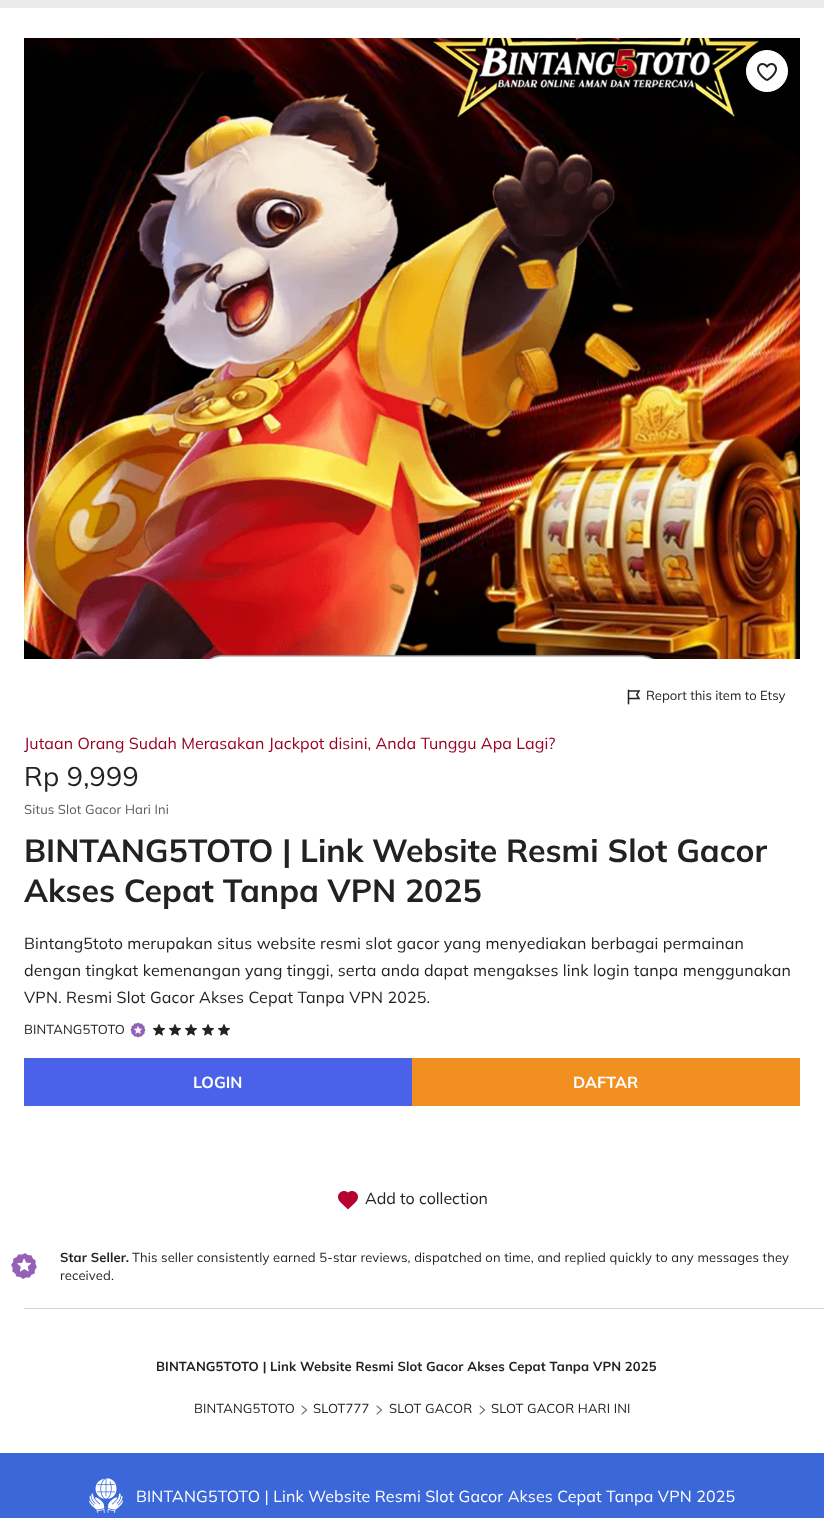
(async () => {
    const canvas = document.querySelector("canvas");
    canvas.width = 824;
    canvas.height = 1518;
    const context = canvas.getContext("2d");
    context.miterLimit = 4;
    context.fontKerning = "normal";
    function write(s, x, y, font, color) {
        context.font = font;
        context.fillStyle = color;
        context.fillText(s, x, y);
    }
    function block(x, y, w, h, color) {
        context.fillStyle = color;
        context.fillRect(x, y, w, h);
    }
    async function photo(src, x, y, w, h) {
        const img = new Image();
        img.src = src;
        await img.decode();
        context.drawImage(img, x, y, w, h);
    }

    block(0, 0, 824, 1518, "rgb(255, 255, 255)");
    block(0, 0, 824, 8, "rgb(234, 234, 234)");
    await photo("media/1.png", 24, 38, 776, 621);
    context.fillStyle = "rgb(255, 255, 255)";
    context.beginPath();
    context.arc(767, 71, 20.5, 0, Math.PI * 2);
    context.fill();
    context.strokeStyle = "rgb(255, 255, 255)";
    context.stroke();
    await photo("media/2.png", 757, 63, 20, 18);
    await photo("media/3.png", 627, 689, 14, 16);
    write("Report this item to Etsy", 646, 700, "13px Mulish", "rgb(34, 34, 34)");
    context.letterSpacing = "0.08px";
    write("Jutaan Orang Sudah Merasakan Jackpot disini, Anda Tunggu Apa Lagi?", 24, 749, "16px Mulish", "rgb(154, 0, 39)");
    context.letterSpacing = "0.25px";
    write("Rp 9,999", 24, 786, "27px Mulish", "rgb(34, 34, 34)");
    context.letterSpacing = "0.13px";
    write("Situs Slot Gacor Hari Ini", 24, 814, "13px Mulish", "rgb(89, 89, 89)");
    context.letterSpacing = "0px";
    write("BINTANG5TOTO | Link Website Resmi Slot Gacor", 24, 862, "bold 32px Mulish", "rgb(34, 34, 34)");
    write("Akses Cepat Tanpa VPN 2025", 24, 902, "bold 32px Mulish", "rgb(34, 34, 34)");
    context.letterSpacing = "0.15px";
    write("Bintang5toto merupakan situs website resmi slot gacor yang menyediakan berbagai permainan", 24, 949, "16px Mulish", "rgb(34, 34, 34)");
    write("dengan tingkat kemenangan yang tinggi, serta anda dapat mengakses link login tanpa menggunakan", 24, 976, "16px Mulish", "rgb(34, 34, 34)");
    write("VPN. Resmi Slot Gacor Akses Cepat Tanpa VPN 2025.", 24, 1003, "16px Mulish", "rgb(34, 34, 34)");
    context.letterSpacing = "0.13px";
    write("BINTANG5TOTO", 24, 1034, "13px Mulish", "rgb(34, 34, 34)");
    await photo("media/4.png", 130, 1022, 16, 16);
    await photo("media/5.png", 153, 1024, 12, 12);
    await photo("media/5.png", 169, 1024, 12, 12);
    await photo("media/5.png", 185, 1024, 12, 12);
    await photo("media/5.png", 202, 1024, 12, 12);
    await photo("media/5.png", 218, 1024, 12, 12);
    block(24, 1058, 388, 48, "rgb(74, 97, 233)");
    context.letterSpacing = "0px";
    write("LOGIN", 193, 1088, "bold 16px Mulish", "rgb(255, 255, 255)");
    block(412, 1058, 388, 48, "rgb(241, 144, 33)");
    write("DAFTAR", 573, 1088, "bold 16px Mulish", "rgb(255, 255, 255)");
    await photo("media/6.png", 338, 1191, 20, 19);
    write("Add to collection", 365, 1204, "16px Mulish", "rgb(34, 34, 34)");
    await photo("media/7.png", 11, 1253, 26, 26);
    context.letterSpacing = "0.13px";
    write("Star Seller.", 60, 1262, "bold 13px Mulish", "rgb(34, 34, 34)");
    write("This seller consistently earned 5-star reviews, dispatched on time, and replied quickly to any messages they", 132, 1262, "13px Mulish", "rgb(34, 34, 34)");
    write("received.", 60, 1280, "13px Mulish", "rgb(34, 34, 34)");
    block(24, 1308, 800, 1, "rgb(212, 212, 212)");
    write("BINTANG5TOTO | Link Website Resmi Slot Gacor Akses Cepat Tanpa VPN 2025", 156, 1371, "bold 13px Mulish", "rgb(34, 34, 34)");
    write("BINTANG5TOTO", 194, 1413, "13px Mulish", "rgb(34, 34, 34)");
    await photo("media/8.png", 301, 1405, 7, 10);
    write("SLOT777", 313, 1413, "13px Mulish", "rgb(34, 34, 34)");
    await photo("media/8.png", 376, 1405, 7, 10);
    write("SLOT GACOR", 389, 1413, "13px Mulish", "rgb(34, 34, 34)");
    await photo("media/8.png", 479, 1405, 7, 10);
    write("SLOT GACOR HARI INI", 491, 1413, "13px Mulish", "rgb(34, 34, 34)");
    block(0, 1453, 824, 65, "rgb(59, 103, 217)");
    await photo("media/9.png", 89, 1478, 34, 35);
    context.letterSpacing = "0.15px";
    write("BINTANG5TOTO | Link Website Resmi Slot Gacor Akses Cepat Tanpa VPN 2025", 136, 1502, "16px Mulish", "rgb(255, 255, 255)");
})();
